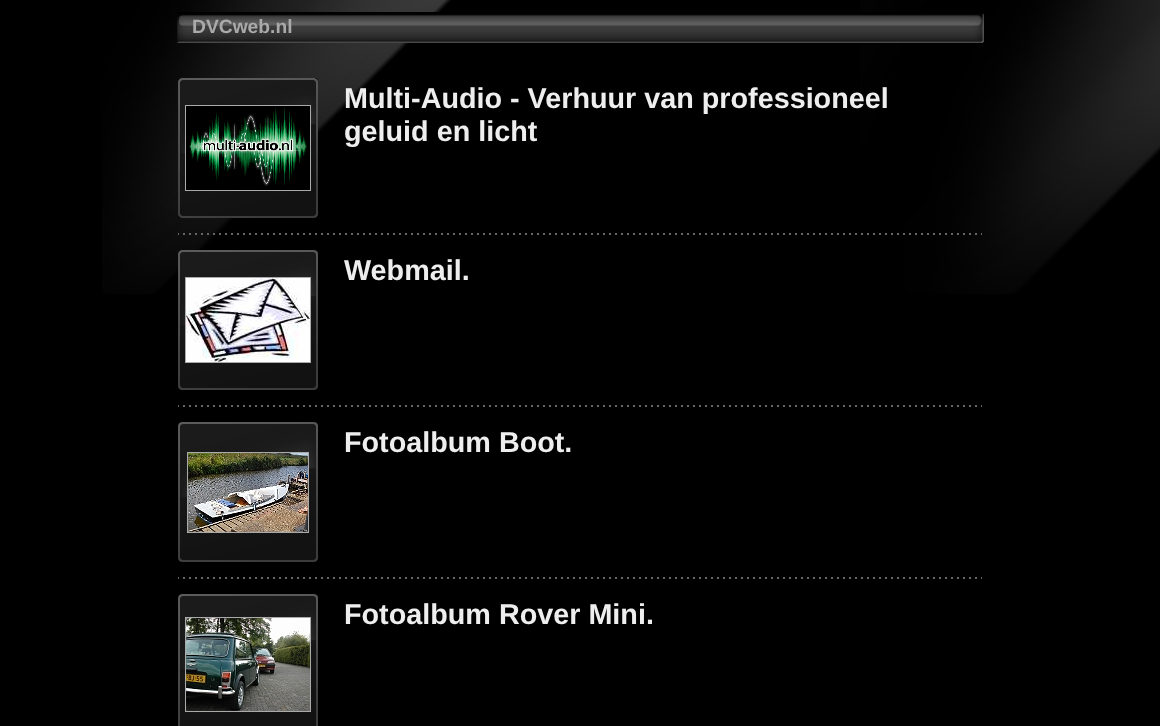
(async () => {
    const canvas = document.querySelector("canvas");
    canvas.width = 1160;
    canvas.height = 726;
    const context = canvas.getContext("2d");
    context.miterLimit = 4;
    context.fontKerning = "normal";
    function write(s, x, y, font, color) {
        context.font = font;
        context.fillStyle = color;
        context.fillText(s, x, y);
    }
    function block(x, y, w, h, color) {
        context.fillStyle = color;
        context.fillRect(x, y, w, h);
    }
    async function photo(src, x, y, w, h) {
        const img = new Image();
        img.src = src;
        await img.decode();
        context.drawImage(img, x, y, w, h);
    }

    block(0, 0, 1160, 726, "rgb(0, 0, 0)");
    await photo("media/1.png", 102, 0, 1058, 294);
    await photo("media/2.png", 177, 12, 15, 31);
    await photo("media/3.png", 192, 12, 776, 31);
    write("DVCweb.nl", 192, 33, "bold 19.25px Liberation Sans", "rgb(170, 170, 170)");
    await photo("media/4.png", 968, 13, 16, 30);
    await photo("media/5.png", 178, 78, 140, 140);
    context.strokeStyle = "rgb(170, 170, 170)";
    context.strokeRect(185.5, 105.5, 125, 85);
    await photo("media/6.png", 186, 106, 124, 84);
    write("Multi-Audio - Verhuur van professioneel", 344, 108, "bold 28.75px Liberation Sans", "rgb(238, 238, 238)");
    write("geluid en licht", 344, 141, "bold 28.75px Liberation Sans", "rgb(238, 238, 238)");
    await photo("media/7.png", 178, 233, 804, 2);
    await photo("media/8.png", 178, 250, 140, 140);
    context.strokeRect(185.5, 277.5, 125, 85);
    await photo("media/9.png", 186, 278, 124, 84);
    write("Webmail.", 344, 280, "bold 28.75px Liberation Sans", "rgb(238, 238, 238)");
    await photo("media/10.png", 178, 405, 804, 2);
    await photo("media/11.png", 178, 422, 140, 140);
    context.strokeRect(187.5, 452.5, 121, 80);
    await photo("media/12.png", 188, 453, 120, 79);
    write("Fotoalbum Boot.", 344, 452, "bold 28.75px Liberation Sans", "rgb(238, 238, 238)");
    await photo("media/10.png", 178, 577, 804, 2);
    await photo("media/13.png", 178, 594, 140, 132);
    context.strokeRect(185.5, 617.5, 125, 94);
    await photo("media/14.png", 186, 618, 124, 93);
    write("Fotoalbum Rover Mini.", 344, 624, "bold 28.75px Liberation Sans", "rgb(238, 238, 238)");
})();
